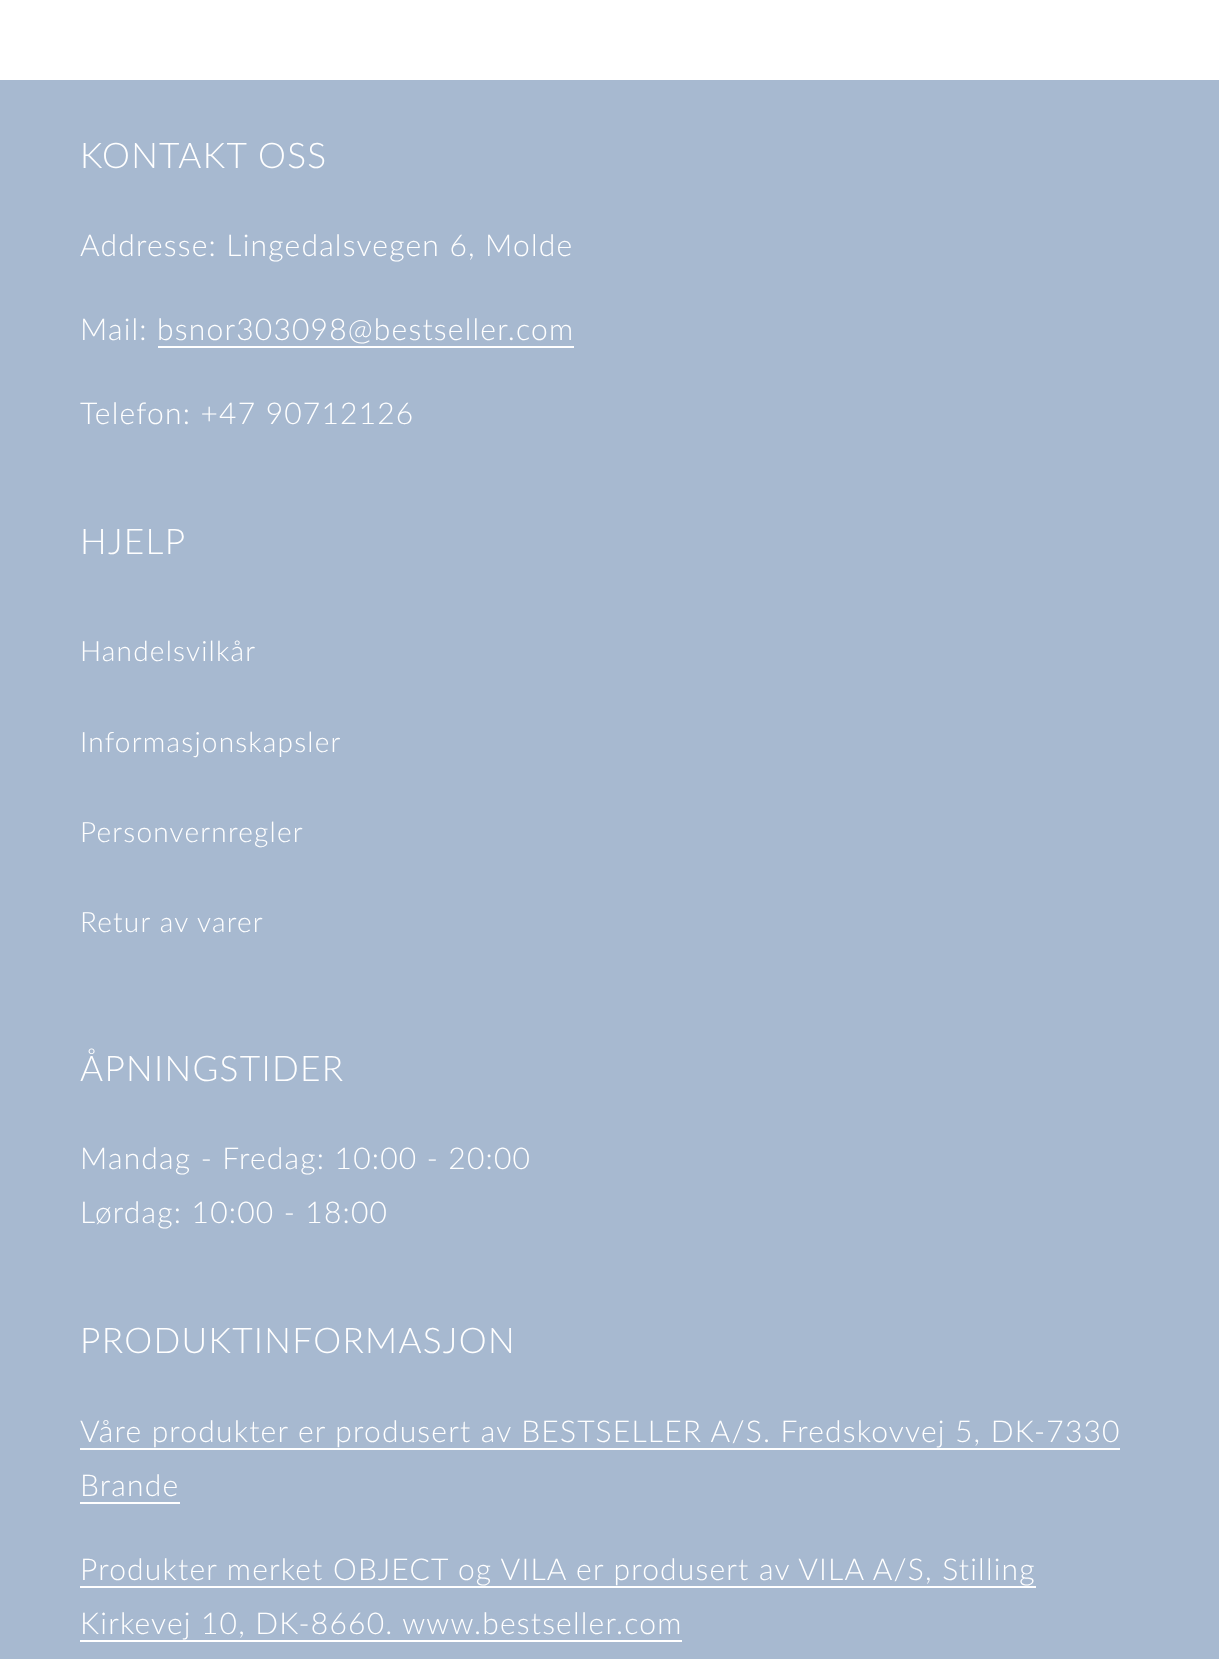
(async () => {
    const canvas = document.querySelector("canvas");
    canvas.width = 1219;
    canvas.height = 1659;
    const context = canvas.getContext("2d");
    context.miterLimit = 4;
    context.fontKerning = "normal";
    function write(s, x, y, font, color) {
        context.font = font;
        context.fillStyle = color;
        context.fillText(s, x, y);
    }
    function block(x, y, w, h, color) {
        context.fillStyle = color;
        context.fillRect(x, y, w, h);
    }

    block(0, 0, 1219, 1659, "rgb(255, 255, 255)");
    block(0, 80, 1219, 1579, "rgb(167, 185, 208)");
    context.letterSpacing = "1.3px";
    write("KONTAKT OSS", 80, 168, "300 35.25px Lato", "rgb(255, 255, 255)");
    context.letterSpacing = "1.2px";
    write("Addresse: Lingedalsvegen 6, Molde", 80, 256, "300 30px Lato", "rgb(255, 255, 255)");
    write("Mail: bsnor303098@bestseller.com", 80, 340, "300 30px Lato", "rgb(255, 255, 255)");
    block(158, 346, 416, 2, "rgb(255, 255, 255)");
    write("Telefon: +47 90712126", 80, 424, "300 30px Lato", "rgb(255, 255, 255)");
    context.letterSpacing = "1.3px";
    write("HJELP", 80, 554, "300 35.25px Lato", "rgb(255, 255, 255)");
    context.letterSpacing = "1.2px";
    write("Handelsvilkår", 80, 661, "300 28px Lato", "rgb(255, 255, 255)");
    write("Informasjonskapsler", 80, 752, "300 28px Lato", "rgb(255, 255, 255)");
    write("Personvernregler", 80, 842, "300 28px Lato", "rgb(255, 255, 255)");
    write("Retur av varer", 80, 932, "300 28px Lato", "rgb(255, 255, 255)");
    context.letterSpacing = "1.3px";
    write("ÅPNINGSTIDER", 80, 1081, "300 35.25px Lato", "rgb(255, 255, 255)");
    context.letterSpacing = "1.2px";
    write("Mandag - Fredag: 10:00 - 20:00", 80, 1169, "300 30px Lato", "rgb(255, 255, 255)");
    write("Lørdag: 10:00 - 18:00", 80, 1223, "300 30px Lato", "rgb(255, 255, 255)");
    context.letterSpacing = "1.3px";
    write("PRODUKTINFORMASJON", 80, 1353, "300 35.25px Lato", "rgb(255, 255, 255)");
    context.letterSpacing = "1.2px";
    write("Våre produkter er produsert av BESTSELLER A/S. Fredskovvej 5, DK-7330", 80, 1442, "300 30px Lato", "rgb(255, 255, 255)");
    block(80, 1448, 1040, 2, "rgb(255, 255, 255)");
    write("Brande", 80, 1496, "300 30px Lato", "rgb(255, 255, 255)");
    block(80, 1502, 100, 2, "rgb(255, 255, 255)");
    write("Produkter merket OBJECT og VILA er produsert av VILA A/S, Stilling", 80, 1580, "300 30px Lato", "rgb(255, 255, 255)");
    block(80, 1586, 956, 2, "rgb(255, 255, 255)");
    write("Kirkevej 10, DK-8660. www.bestseller.com", 80, 1634, "300 30px Lato", "rgb(255, 255, 255)");
    block(80, 1640, 602, 2, "rgb(255, 255, 255)");
})();
